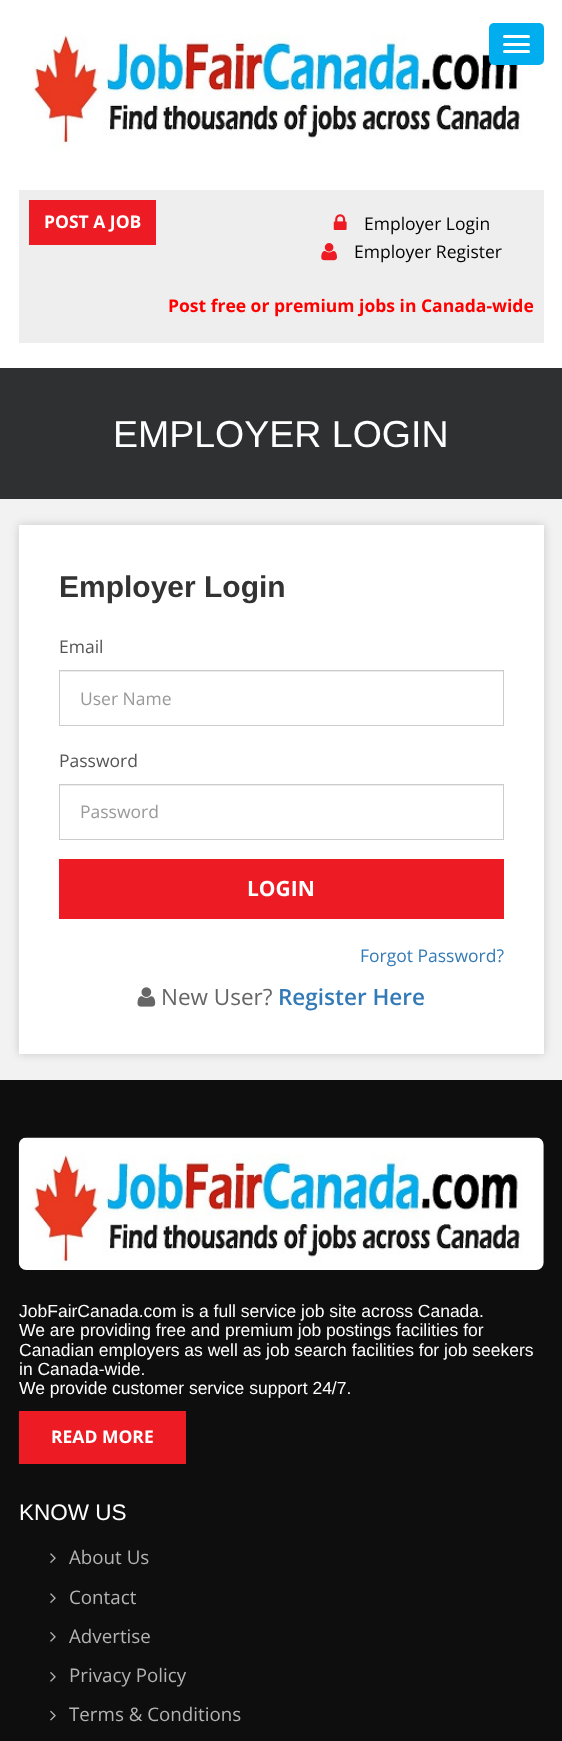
(async () => {
    const canvas = document.querySelector("canvas");
    canvas.width = 562;
    canvas.height = 1741;
    const context = canvas.getContext("2d");
    context.miterLimit = 4;
    context.fontKerning = "normal";
    function write(s, x, y, font, color) {
        context.font = font;
        context.fillStyle = color;
        context.fillText(s, x, y);
    }
    function block(x, y, w, h, color) {
        context.fillStyle = color;
        context.fillRect(x, y, w, h);
    }
    function card(x, y, w, h, r, color) {
        context.fillStyle = color;
        context.beginPath();
        context.roundRect(x, y, w, h, r);
        context.fill();
    }
    async function photo(src, x, y, w, h) {
        const img = new Image();
        img.src = src;
        await img.decode();
        context.drawImage(img, x, y, w, h);
    }

    block(0, 0, 562, 1741, "rgb(255, 255, 255)");
    await photo("media/1.png", 33, 34, 490, 116);
    card(489, 23, 55, 42, 5, "rgb(0, 174, 239)");
    card(503, 35, 27, 3, 1.5, "rgb(255, 255, 255)");
    card(503, 43, 27, 3, 1.5, "rgb(255, 255, 255)");
    card(503, 50, 27, 3, 1.5, "rgb(255, 255, 255)");
    block(19, 190, 525, 153, "rgb(238, 238, 238)");
    block(29, 200, 127, 45, "rgb(237, 28, 36)");
    write("POST A JOB", 44, 228, "bold 17.5px Open Sans", "rgb(255, 255, 255)");
    await photo("media/2.png", 333, 214, 14, 16);
    write("Employer Login", 364, 230, "17.5px Open Sans", "rgb(0, 0, 0)");
    await photo("media/3.png", 321, 243, 16, 18);
    write("Employer Register", 354, 258, "17.5px Open Sans", "rgb(0, 0, 0)");
    write("Post free or premium jobs in Canada-wide", 168, 312, "bold 17.5px Open Sans", "rgb(255, 0, 0)");
    block(0, 368, 562, 131, "rgb(47, 48, 50)");
    write("EMPLOYER LOGIN", 113, 447, "37.5px Liberation Sans", "rgb(255, 255, 255)");
    block(0, 499, 562, 581, "rgb(243, 242, 242)");
    context.fillStyle = "rgba(0, 0, 0, 0.17)";
    context.filter = "blur(5px)";
    context.beginPath();
    context.rect(19, 525, 525, 529);
    context.fill();
    context.filter = "none";
    block(19, 525, 525, 529, "rgb(255, 255, 255)");
    write("Employer Login", 59, 597, "bold 30px Liberation Sans", "rgb(51, 51, 51)");
    write("Email", 59, 653, "17.5px Open Sans", "rgb(85, 85, 85)");
    block(60, 671, 443, 1, "rgb(236, 236, 236)");
    context.strokeStyle = "rgb(204, 204, 204)";
    context.strokeRect(59.5, 670.5, 444, 55);
    write("User Name", 80, 705, "17.5px Open Sans", "rgb(153, 153, 153)");
    write("Password", 59, 767, "17.5px Open Sans", "rgb(85, 85, 85)");
    block(60, 785, 443, 1, "rgb(236, 236, 236)");
    context.strokeRect(59.5, 784.5, 444, 55);
    write("Password", 80, 818, "17.5px Open Sans", "rgb(153, 153, 153)");
    block(59, 859, 445, 60, "rgb(237, 28, 36)");
    write("LOGIN", 247, 896, "bold 21px Open Sans", "rgb(255, 255, 255)");
    write("Forgot Password?", 360, 962, "17.5px Open Sans", "rgb(51, 122, 183)");
    await photo("media/4.png", 137, 987, 19, 20);
    write("New User?", 161, 1005, "22.5px Open Sans", "rgb(102, 102, 102)");
    write("Register Here", 278, 1005, "600 22.5px Open Sans", "rgb(51, 122, 183)");
    block(0, 1080, 562, 661, "rgb(14, 14, 14)");
    await photo("media/5.png", 18, 1137, 526, 133);
    write("JobFairCanada.com is a full service job site across Canada.", 19, 1317, "17.5px Liberation Sans", "rgb(255, 255, 255)");
    write("We are providing free and premium job postings facilities for", 19, 1336, "17.5px Liberation Sans", "rgb(255, 255, 255)");
    write("Canadian employers as well as job search facilities for job seekers", 19, 1356, "17.5px Liberation Sans", "rgb(255, 255, 255)");
    write("in Canada-wide.", 19, 1375, "17.5px Liberation Sans", "rgb(255, 255, 255)");
    write("We provide customer service support 24/7.", 19, 1394, "17.5px Liberation Sans", "rgb(255, 255, 255)");
    block(19, 1411, 167, 53, "rgb(237, 28, 36)");
    write("READ MORE", 51, 1443, "bold 17.5px Open Sans", "rgb(255, 255, 255)");
    write("KNOW US", 19, 1520, "22.5px Liberation Sans", "rgb(255, 255, 255)");
    await photo("media/6.png", 50, 1553, 6, 10);
    write("About Us", 69, 1564, "18.75px Open Sans", "rgb(179, 179, 179)");
    await photo("media/6.png", 50, 1593, 6, 10);
    write("Contact", 69, 1604, "18.75px Open Sans", "rgb(179, 179, 179)");
    await photo("media/7.png", 50, 1632, 6, 10);
    write("Advertise", 69, 1643, "18.75px Open Sans", "rgb(179, 179, 179)");
    await photo("media/7.png", 50, 1672, 6, 10);
    write("Privacy Policy", 69, 1682, "18.75px Open Sans", "rgb(179, 179, 179)");
    await photo("media/8.png", 50, 1710, 6, 11);
    write("Terms & Conditions", 69, 1721, "18.75px Open Sans", "rgb(179, 179, 179)");
})();
